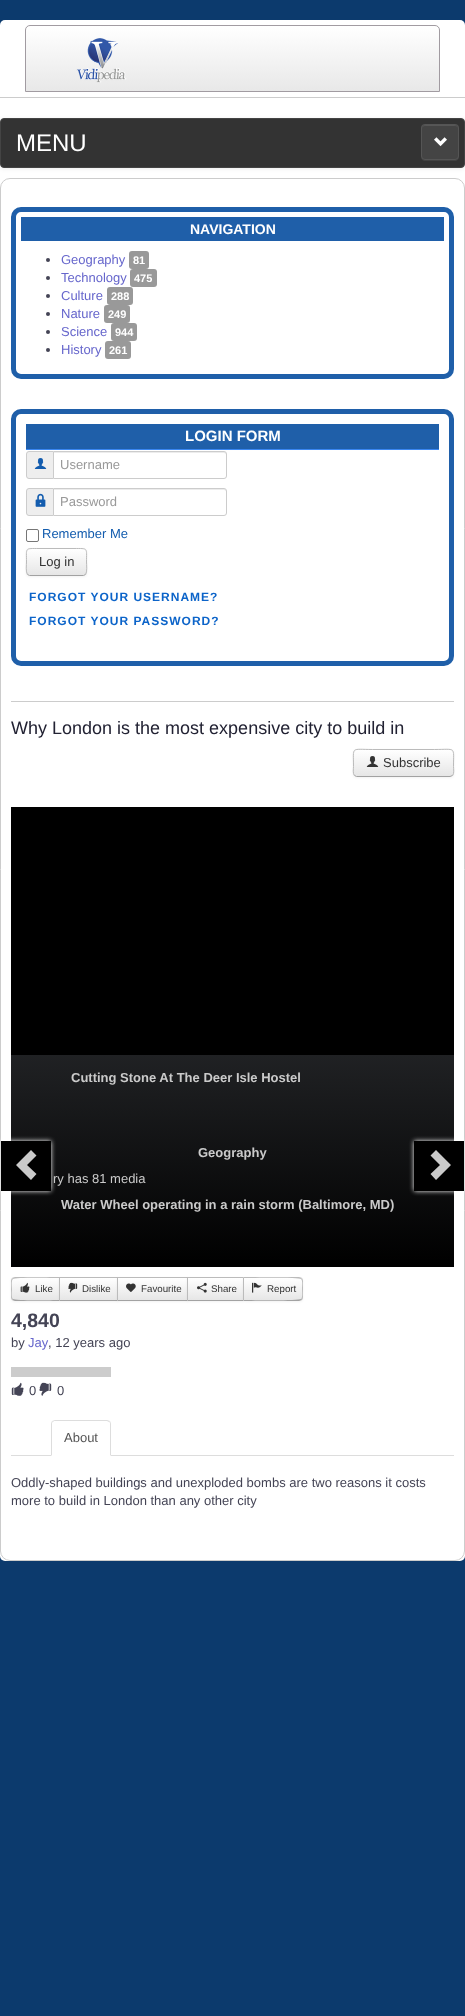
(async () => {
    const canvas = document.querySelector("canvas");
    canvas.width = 465;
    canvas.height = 2016;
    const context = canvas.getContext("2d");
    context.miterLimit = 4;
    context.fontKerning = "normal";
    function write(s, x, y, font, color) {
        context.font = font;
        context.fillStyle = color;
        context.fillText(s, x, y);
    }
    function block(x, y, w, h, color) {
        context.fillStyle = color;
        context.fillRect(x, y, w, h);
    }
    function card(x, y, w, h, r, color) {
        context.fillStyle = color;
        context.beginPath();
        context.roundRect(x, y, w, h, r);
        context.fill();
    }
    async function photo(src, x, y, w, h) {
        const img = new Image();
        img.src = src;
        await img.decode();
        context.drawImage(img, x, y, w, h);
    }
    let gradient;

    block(0, 0, 465, 2016, "rgb(12, 58, 109)");
    card(0, 20, 465, 1541, 5, "rgb(255, 255, 255)");
    block(0, 97, 465, 1, "rgb(204, 204, 204)");
    context.save();
    context.beginPath();
    context.roundRect(25, 25, 415, 67, [5, 5, 0, 0]);
    context.clip();
    gradient = context.createLinearGradient(233, 26, 233, 91);
    gradient.addColorStop(0, "rgb(255, 255, 255)");
    gradient.addColorStop(1, "rgb(232, 232, 232)");
    context.fillStyle = gradient;
    context.fillRect(25, 26, 415, 65);
    context.restore();
    context.beginPath();
    context.roundRect(25.5, 25.5, 414, 66, [4.5, 4.5, 0, 0]);
    context.strokeStyle = "rgb(161, 155, 161)";
    context.stroke();
    await photo("media/1.png", 76, 38, 51, 45);
    context.fillStyle = "rgba(0, 0, 0, 0.07)";
    context.filter = "blur(2px)";
    context.beginPath();
    context.roundRect(0, 119, 465, 50, 4);
    context.fill();
    context.filter = "none";
    context.fillStyle = "rgb(51, 51, 51)";
    context.beginPath();
    context.roundRect(0.5, 118.5, 464, 49, 3.5);
    context.fill();
    context.strokeStyle = "rgb(68, 68, 68)";
    context.stroke();
    write("MENU", 16, 151, "24px Liberation Sans", "rgb(255, 255, 255)");
    context.fillStyle = "rgb(66, 66, 66)";
    context.beginPath();
    context.moveTo(421, 156);
    context.bezierCurveTo(421, 162, 425.5, 161, 430, 161);
    context.lineTo(450, 161);
    context.bezierCurveTo(454.5, 161, 459, 162, 459, 156);
    context.bezierCurveTo(459, 158, 457, 160, 455, 160);
    context.lineTo(425, 160);
    context.bezierCurveTo(423, 160, 421, 158, 421, 156);
    context.closePath();
    context.fill();
    card(421, 124, 38, 36, 4, "rgb(68, 68, 68)");
    context.fillStyle = "rgb(87, 87, 87)";
    context.beginPath();
    context.moveTo(425, 126);
    context.lineTo(455, 126);
    context.bezierCurveTo(457, 126, 458, 127, 458, 129);
    context.bezierCurveTo(458, 124, 454, 125, 450, 125);
    context.lineTo(430, 125);
    context.bezierCurveTo(426, 125, 422, 124, 422, 129);
    context.bezierCurveTo(422, 127, 423, 126, 425, 126);
    context.closePath();
    context.fill();
    context.beginPath();
    context.roundRect(421.5, 124.5, 37, 35, 3.5);
    context.strokeStyle = "rgb(85, 85, 85)";
    context.stroke();
    await photo("media/2.png", 434, 137, 13, 10);
    context.beginPath();
    context.roundRect(0.5, 178.5, 464, 1382, 9.5);
    context.strokeStyle = "rgb(204, 204, 204)";
    context.stroke();
    context.beginPath();
    context.roundRect(13.5, 209.5, 438, 167, 7.5);
    context.strokeStyle = "rgb(31, 95, 169)";
    context.lineWidth = 5;
    context.stroke();
    block(21, 217, 423, 24, "rgb(31, 95, 169)");
    write("NAVIGATION", 190, 234, "bold 14px Liberation Sans", "rgb(255, 255, 255)");
    context.fillStyle = "rgb(68, 68, 85)";
    context.beginPath();
    context.arc(48, 260, 2, 0, Math.PI * 2);
    context.fill();
    write("Geography", 61, 264, "13px Liberation Sans", "rgb(102, 102, 204)");
    card(129, 251, 20, 18, 3, "rgb(153, 153, 153)");
    write("81", 133, 264, "bold 11px Liberation Sans", "rgb(255, 255, 255)");
    context.fillStyle = "rgb(68, 68, 85)";
    context.beginPath();
    context.arc(48, 278, 2, 0, Math.PI * 2);
    context.fill();
    write("Technology", 61, 282, "13px Liberation Sans", "rgb(102, 102, 204)");
    card(130, 269, 27, 18, 3, "rgb(153, 153, 153)");
    write("475", 134, 282, "bold 11px Liberation Sans", "rgb(255, 255, 255)");
    context.fillStyle = "rgb(68, 68, 85)";
    context.beginPath();
    context.arc(48, 296, 2, 0, Math.PI * 2);
    context.fill();
    write("Culture", 61, 300, "13px Liberation Sans", "rgb(102, 102, 204)");
    card(107, 287, 26, 18, 3, "rgb(153, 153, 153)");
    write("288", 111, 300, "bold 11px Liberation Sans", "rgb(255, 255, 255)");
    context.fillStyle = "rgb(68, 68, 85)";
    context.beginPath();
    context.arc(48, 314, 2, 0, Math.PI * 2);
    context.fill();
    write("Nature", 61, 318, "13px Liberation Sans", "rgb(102, 102, 204)");
    card(104, 305, 26, 18, 3, "rgb(153, 153, 153)");
    write("249", 108, 318, "bold 11px Liberation Sans", "rgb(255, 255, 255)");
    context.fillStyle = "rgb(68, 68, 85)";
    context.beginPath();
    context.arc(48, 332, 2, 0, Math.PI * 2);
    context.fill();
    write("Science", 61, 336, "13px Liberation Sans", "rgb(102, 102, 204)");
    card(111, 323, 26, 18, 3, "rgb(153, 153, 153)");
    write("944", 115, 336, "bold 11px Liberation Sans", "rgb(255, 255, 255)");
    context.fillStyle = "rgb(68, 68, 85)";
    context.beginPath();
    context.arc(48, 350, 2, 0, Math.PI * 2);
    context.fill();
    write("History", 61, 354, "13px Liberation Sans", "rgb(102, 102, 204)");
    card(105, 341, 26, 18, 3, "rgb(153, 153, 153)");
    write("261", 109, 354, "bold 11px Liberation Sans", "rgb(255, 255, 255)");
    context.beginPath();
    context.roundRect(13.5, 411.5, 438, 252, 7.5);
    context.stroke();
    block(26, 424, 413, 25, "rgb(31, 95, 169)");
    block(26, 449, 413, 1, "rgb(57, 134, 241)");
    write("LOGIN FORM", 185, 441, "bold 15px Liberation Sans", "rgb(255, 255, 255)");
    context.fillStyle = "rgb(238, 238, 238)";
    context.beginPath();
    context.roundRect(26.5, 451.5, 27, 27, [2.5, 0, 0, 2.5]);
    context.fill();
    context.strokeStyle = "rgb(204, 204, 204)";
    context.lineWidth = 1;
    context.stroke();
    await photo("media/3.png", 34, 458, 13, 11);
    context.fillStyle = "rgb(255, 255, 255)";
    context.beginPath();
    context.roundRect(53, 451, 174, 28, [0, 3, 3, 0]);
    context.fill();
    context.fillStyle = "rgb(236, 236, 236)";
    context.beginPath();
    context.moveTo(54, 453);
    context.lineTo(224, 453);
    context.bezierCurveTo(225, 453, 226, 454, 226, 455);
    context.bezierCurveTo(226, 454, 226, 453, 225, 452);
    context.lineTo(54, 452);
    context.closePath();
    context.fill();
    context.beginPath();
    context.roundRect(53.5, 451.5, 173, 27, [0, 2.5, 2.5, 0]);
    context.stroke();
    write("Username", 60, 469, "13px Liberation Sans", "rgb(153, 153, 153)");
    context.fillStyle = "rgb(238, 238, 238)";
    context.beginPath();
    context.roundRect(26.5, 488.5, 27, 27, [2.5, 0, 0, 2.5]);
    context.fill();
    context.stroke();
    await photo("media/4.png", 35, 493, 11, 14);
    context.fillStyle = "rgb(255, 255, 255)";
    context.beginPath();
    context.roundRect(53, 488, 174, 28, [0, 3, 3, 0]);
    context.fill();
    context.fillStyle = "rgb(236, 236, 236)";
    context.beginPath();
    context.moveTo(54, 490);
    context.lineTo(224, 490);
    context.bezierCurveTo(225, 490, 226, 491, 226, 492);
    context.bezierCurveTo(226, 491, 226, 490, 225, 489);
    context.lineTo(54, 489);
    context.closePath();
    context.fill();
    context.beginPath();
    context.roundRect(53.5, 488.5, 173, 27, [0, 2.5, 2.5, 0]);
    context.stroke();
    write("Password", 60, 506, "13px Liberation Sans", "rgb(153, 153, 153)");
    context.beginPath();
    context.roundRect(26.5, 529.5, 12, 12, 1.5);
    context.strokeStyle = "rgb(118, 118, 118)";
    context.stroke();
    write("Remember Me", 42, 538, "13px Liberation Sans", "rgb(19, 92, 174)");
    context.fillStyle = "rgba(0, 0, 0, 0.05)";
    context.filter = "blur(1px)";
    context.beginPath();
    context.roundRect(26, 549, 61, 28, 4);
    context.fill();
    context.filter = "none";
    card(26, 548, 61, 28, 4, "rgb(245, 245, 245)");
    context.save();
    context.beginPath();
    context.roundRect(26, 548, 61, 28, 4);
    context.clip();
    gradient = context.createLinearGradient(57, 549, 57, 575);
    gradient.addColorStop(0, "rgb(255, 255, 255)");
    gradient.addColorStop(1, "rgb(230, 230, 230)");
    context.fillStyle = gradient;
    context.fillRect(26, 549, 61, 26);
    context.restore();
    context.fillStyle = "rgb(255, 255, 255)";
    context.beginPath();
    context.moveTo(30, 550);
    context.lineTo(83, 550);
    context.bezierCurveTo(85, 550, 86, 551, 86, 553);
    context.bezierCurveTo(86, 547, 79, 549, 74, 549);
    context.lineTo(39, 549);
    context.bezierCurveTo(34, 549, 27, 547, 27, 553);
    context.bezierCurveTo(27, 551, 28, 550, 30, 550);
    context.closePath();
    context.fill();
    context.beginPath();
    context.moveTo(85.5, 574.5);
    context.lineTo(83.5, 575.5);
    context.lineTo(29.5, 575.5);
    context.lineTo(27.5, 574.5);
    context.strokeStyle = "rgb(162, 162, 162)";
    context.stroke();
    context.beginPath();
    context.moveTo(27.5, 574.5);
    context.bezierCurveTo(25.5, 572, 26.5, 564.5, 26.5, 562);
    context.bezierCurveTo(26.5, 547.5, 24.5, 548.5, 39, 548.5);
    context.lineTo(74, 548.5);
    context.bezierCurveTo(88.5, 548.5, 86.5, 547.5, 86.5, 562);
    context.bezierCurveTo(86.5, 564.5, 87.5, 572, 85.5, 574.5);
    context.strokeStyle = "rgb(187, 187, 187)";
    context.stroke();
    write("Log in", 39, 566, "13px Liberation Sans", "rgb(51, 51, 51)");
    context.letterSpacing = "1px";
    write("FORGOT YOUR USERNAME?", 29, 601, "bold 12px Liberation Sans", "rgb(12, 100, 201)");
    write("FORGOT YOUR PASSWORD?", 29, 625, "bold 12px Liberation Sans", "rgb(12, 100, 201)");
    block(11, 701, 443, 1, "rgb(204, 204, 204)");
    context.letterSpacing = "0px";
    write("Why London is the most expensive city to build in", 11, 734, "18px Liberation Sans", "rgb(34, 34, 51)");
    context.fillStyle = "rgba(0, 0, 0, 0.05)";
    context.filter = "blur(1px)";
    context.beginPath();
    context.roundRect(353, 750, 101, 28, 4);
    context.fill();
    context.filter = "none";
    card(353, 749, 101, 28, 4, "rgb(245, 245, 245)");
    context.save();
    context.beginPath();
    context.roundRect(353, 749, 101, 28, 4);
    context.clip();
    gradient = context.createLinearGradient(404, 750, 404, 776);
    gradient.addColorStop(0, "rgb(255, 255, 255)");
    gradient.addColorStop(1, "rgb(230, 230, 230)");
    context.fillStyle = gradient;
    context.fillRect(353, 750, 101, 26);
    context.restore();
    context.beginPath();
    context.moveTo(452.5, 775.5);
    context.lineTo(450, 776.5);
    context.lineTo(356.5, 776.5);
    context.lineTo(354.5, 775.5);
    context.strokeStyle = "rgb(162, 162, 162)";
    context.stroke();
    context.beginPath();
    context.moveTo(354.5, 775.5);
    context.bezierCurveTo(352.5, 773.5, 353.5, 769, 353.5, 766.5);
    context.bezierCurveTo(353.5, 746, 350.5, 749.5, 372.5, 749.5);
    context.lineTo(434.5, 749.5);
    context.bezierCurveTo(456.5, 749.5, 453.5, 746, 453.5, 766.5);
    context.bezierCurveTo(453.5, 769, 454.5, 773.5, 452.5, 775.5);
    context.strokeStyle = "rgb(187, 187, 187)";
    context.stroke();
    await photo("media/5.png", 366, 756, 13, 11);
    write("Subscribe", 383, 767, "13px Liberation Sans", "rgb(51, 51, 51)");
    gradient = context.createLinearGradient(232, 807, 233, 1267);
    gradient.addColorStop(0, "rgb(69, 72, 77)");
    gradient.addColorStop(1, "rgb(0, 0, 0)");
    context.fillStyle = gradient;
    context.fillRect(11, 1055, 443, 212);
    block(11, 807, 443, 248, "rgb(0, 0, 0)");
    write("Cutting Stone At The Deer Isle Hostel", 71, 1082, "bold 13px Liberation Sans", "rgb(202, 202, 202)");
    context.fillStyle = "rgb(255, 255, 255)";
    context.filter = "blur(2.5px)";
    context.beginPath();
    context.rect(1, 1141, 50, 50);
    context.fill();
    context.filter = "none";
    block(1, 1141, 50, 50, "rgb(0, 0, 0)");
    context.fillStyle = "rgb(202, 202, 202)";
    context.beginPath();
    context.moveTo(31, 1180);
    context.lineTo(16, 1165);
    context.lineTo(31, 1150);
    context.lineTo(36.5, 1155.5);
    context.lineTo(27, 1165);
    context.lineTo(36.5, 1174);
    context.closePath();
    context.fill();
    write("Geography", 198, 1157, "bold 13px Liberation Sans", "rgb(202, 202, 202)");
    write("ry has 81 media", 53, 1183, "13px Liberation Sans", "rgb(202, 202, 202)");
    context.fillStyle = "rgb(255, 255, 255)";
    context.filter = "blur(2.5px)";
    context.beginPath();
    context.rect(414, 1141, 50, 50);
    context.fill();
    context.filter = "none";
    block(414, 1141, 50, 50, "rgb(0, 0, 0)");
    context.fillStyle = "rgb(202, 202, 202)";
    context.beginPath();
    context.moveTo(436, 1150);
    context.lineTo(451, 1165);
    context.lineTo(436, 1180);
    context.lineTo(430.5, 1174);
    context.lineTo(440, 1165);
    context.lineTo(430.5, 1155.5);
    context.closePath();
    context.fill();
    write("Water Wheel operating in a rain storm (Baltimore, MD)", 61, 1209, "bold 13px Liberation Sans", "rgb(202, 202, 202)");
    context.fillStyle = "rgba(0, 0, 0, 0.05)";
    context.filter = "blur(1px)";
    context.beginPath();
    context.roundRect(11, 1278, 49, 24, 4);
    context.fill();
    context.filter = "none";
    context.fillStyle = "rgb(245, 245, 245)";
    context.beginPath();
    context.roundRect(11, 1277, 49, 24, [4, 0, 0, 4]);
    context.fill();
    context.save();
    context.beginPath();
    context.roundRect(11, 1277, 49, 24, [4, 0, 0, 4]);
    context.clip();
    gradient = context.createLinearGradient(36, 1278, 36, 1300);
    gradient.addColorStop(0, "rgb(255, 255, 255)");
    gradient.addColorStop(1, "rgb(230, 230, 230)");
    context.fillStyle = gradient;
    context.fillRect(11, 1278, 48, 22);
    context.restore();
    context.fillStyle = "rgb(187, 187, 187)";
    context.beginPath();
    context.moveTo(15, 1277);
    context.lineTo(12, 1278);
    context.lineTo(13, 1279);
    context.bezierCurveTo(15, 1277, 54, 1278, 59, 1278);
    context.lineTo(60, 1277);
    context.closePath();
    context.fill();
    context.fillStyle = "rgb(162, 162, 162)";
    context.beginPath();
    context.moveTo(60, 1301);
    context.lineTo(59, 1300);
    context.bezierCurveTo(54, 1300, 15, 1301, 13, 1299);
    context.lineTo(12, 1300);
    context.lineTo(15, 1301);
    context.closePath();
    context.fill();
    context.fillStyle = "rgb(187, 187, 187)";
    context.beginPath();
    context.moveTo(11, 1281);
    context.lineTo(11, 1297);
    context.bezierCurveTo(11, 1298, 11.5, 1299, 12, 1300);
    context.lineTo(13, 1299);
    context.bezierCurveTo(11, 1297.5, 12, 1291, 12, 1289);
    context.bezierCurveTo(12, 1287, 11, 1280.5, 13, 1279);
    context.lineTo(12, 1278);
    context.bezierCurveTo(11.5, 1279, 11, 1280, 11, 1281);
    context.closePath();
    context.fill();
    await photo("media/6.png", 20, 1282, 10, 11);
    write("Like", 35, 1292, "9.75px Liberation Sans", "rgb(51, 51, 51)");
    context.fillStyle = "rgba(0, 0, 0, 0.05)";
    context.filter = "blur(1px)";
    context.beginPath();
    context.rect(59, 1278, 59, 24);
    context.fill();
    context.filter = "none";
    gradient = context.createLinearGradient(89, 1278, 89, 1300);
    gradient.addColorStop(0, "rgb(255, 255, 255)");
    gradient.addColorStop(1, "rgb(230, 230, 230)");
    context.fillStyle = gradient;
    context.fillRect(60, 1278, 57, 22);
    block(59, 1277, 59, 1, "rgb(187, 187, 187)");
    block(59, 1300, 59, 1, "rgb(162, 162, 162)");
    block(59, 1277, 1, 24, "rgb(187, 187, 187)");
    await photo("media/7.png", 68, 1282, 10, 11);
    write("Dislike", 82, 1292, "9.75px Liberation Sans", "rgb(51, 51, 51)");
    context.fillStyle = "rgba(0, 0, 0, 0.05)";
    context.filter = "blur(1px)";
    context.beginPath();
    context.rect(117, 1278, 71, 24);
    context.fill();
    context.filter = "none";
    gradient = context.createLinearGradient(153, 1278, 153, 1300);
    gradient.addColorStop(0, "rgb(255, 255, 255)");
    gradient.addColorStop(1, "rgb(230, 230, 230)");
    context.fillStyle = gradient;
    context.fillRect(118, 1278, 69, 22);
    block(117, 1277, 71, 1, "rgb(187, 187, 187)");
    block(117, 1300, 71, 1, "rgb(162, 162, 162)");
    block(117, 1277, 1, 24, "rgb(187, 187, 187)");
    await photo("media/8.png", 126, 1283, 10, 9);
    write("Favourite", 141, 1292, "9.75px Liberation Sans", "rgb(51, 51, 51)");
    context.fillStyle = "rgba(0, 0, 0, 0.05)";
    context.filter = "blur(1px)";
    context.beginPath();
    context.rect(187, 1278, 57, 24);
    context.fill();
    context.filter = "none";
    gradient = context.createLinearGradient(216, 1278, 216, 1300);
    gradient.addColorStop(0, "rgb(255, 255, 255)");
    gradient.addColorStop(1, "rgb(230, 230, 230)");
    context.fillStyle = gradient;
    context.fillRect(188, 1278, 55, 22);
    block(187, 1277, 57, 1, "rgb(187, 187, 187)");
    block(187, 1300, 57, 1, "rgb(162, 162, 162)");
    block(187, 1277, 1, 24, "rgb(187, 187, 187)");
    await photo("media/9.png", 197, 1282, 10, 11);
    write("Share", 211, 1292, "9.75px Liberation Sans", "rgb(51, 51, 51)");
    context.fillStyle = "rgba(0, 0, 0, 0.05)";
    context.filter = "blur(1px)";
    context.beginPath();
    context.roundRect(243, 1278, 60, 24, 4);
    context.fill();
    context.filter = "none";
    context.fillStyle = "rgb(245, 245, 245)";
    context.beginPath();
    context.roundRect(243, 1277, 60, 24, [0, 4, 4, 0]);
    context.fill();
    context.save();
    context.beginPath();
    context.roundRect(243, 1277, 60, 24, [0, 4, 4, 0]);
    context.clip();
    gradient = context.createLinearGradient(273, 1278, 273, 1300);
    gradient.addColorStop(0, "rgb(255, 255, 255)");
    gradient.addColorStop(1, "rgb(230, 230, 230)");
    context.fillStyle = gradient;
    context.fillRect(244, 1278, 59, 22);
    context.restore();
    context.fillStyle = "rgb(187, 187, 187)";
    context.beginPath();
    context.moveTo(243, 1277);
    context.lineTo(244, 1278);
    context.bezierCurveTo(250, 1278, 299, 1277, 301, 1279);
    context.lineTo(302, 1278);
    context.lineTo(299, 1277);
    context.closePath();
    context.fill();
    context.beginPath();
    context.moveTo(303, 1297);
    context.lineTo(303, 1281);
    context.bezierCurveTo(303, 1280, 302.5, 1279, 302, 1278);
    context.lineTo(301, 1279);
    context.bezierCurveTo(303, 1280.5, 302, 1287, 302, 1289);
    context.bezierCurveTo(302, 1291, 303, 1297.5, 301, 1299);
    context.lineTo(302, 1300);
    context.bezierCurveTo(302.5, 1299, 303, 1298, 303, 1297);
    context.closePath();
    context.fill();
    context.fillStyle = "rgb(162, 162, 162)";
    context.beginPath();
    context.moveTo(299, 1301);
    context.lineTo(302, 1300);
    context.lineTo(301, 1299);
    context.bezierCurveTo(299, 1301, 250, 1300, 244, 1300);
    context.lineTo(243, 1301);
    context.closePath();
    context.fill();
    context.fillStyle = "rgb(187, 187, 187)";
    context.beginPath();
    context.moveTo(243, 1277);
    context.lineTo(243, 1301);
    context.lineTo(244, 1300);
    context.lineTo(244, 1278);
    context.closePath();
    context.fill();
    await photo("media/10.png", 252, 1282, 10, 11);
    write("Report", 267, 1292, "9.75px Liberation Sans", "rgb(51, 51, 51)");
    write("4,840", 11, 1327, "bold 19.5px Liberation Sans", "rgb(68, 68, 85)");
    write("by", 11, 1347, "13px Liberation Sans", "rgb(68, 68, 85)");
    write("Jay", 28, 1347, "13px Liberation Sans", "rgb(102, 102, 204)");
    write(", 12 years ago", 48, 1347, "13px Liberation Sans", "rgb(68, 68, 85)");
    block(11, 1367, 100, 10, "rgb(204, 204, 204)");
    await photo("media/11.png", 11, 1382, 13, 14);
    write("0", 29, 1395, "13px Liberation Sans", "rgb(68, 68, 85)");
    await photo("media/12.png", 39, 1382, 13, 14);
    write("0", 57, 1395, "13px Liberation Sans", "rgb(68, 68, 85)");
    block(11, 1455, 443, 1, "rgb(221, 221, 221)");
    context.fillStyle = "rgb(255, 255, 255)";
    context.beginPath();
    context.roundRect(51, 1420, 60, 36, [4, 4, 0, 0]);
    context.fill();
    context.fillStyle = "rgb(221, 221, 221)";
    context.beginPath();
    context.moveTo(55, 1420);
    context.lineTo(52, 1421);
    context.lineTo(53, 1422);
    context.lineTo(54, 1421);
    context.lineTo(107, 1421);
    context.lineTo(109, 1422);
    context.lineTo(110, 1421);
    context.lineTo(107, 1420);
    context.closePath();
    context.fill();
    context.beginPath();
    context.moveTo(111, 1456);
    context.lineTo(111, 1424);
    context.bezierCurveTo(111, 1423, 110.5, 1422, 110, 1421);
    context.lineTo(109, 1422);
    context.bezierCurveTo(110, 1422, 110, 1423, 110, 1424);
    context.lineTo(110, 1455);
    context.closePath();
    context.moveTo(51, 1456);
    context.lineTo(52, 1455);
    context.lineTo(52, 1424);
    context.bezierCurveTo(52, 1423, 52, 1422, 53, 1422);
    context.lineTo(52, 1421);
    context.bezierCurveTo(51.5, 1422, 51, 1423, 51, 1424);
    context.closePath();
    context.fill();
    write("About", 64, 1442, "13px Liberation Sans", "rgb(85, 85, 85)");
    write("Oddly-shaped buildings and unexploded bombs are two reasons it costs", 11, 1487, "13px Liberation Sans", "rgb(68, 68, 85)");
    write("more to build in London than any other city", 11, 1505, "13px Liberation Sans", "rgb(68, 68, 85)");
})();
